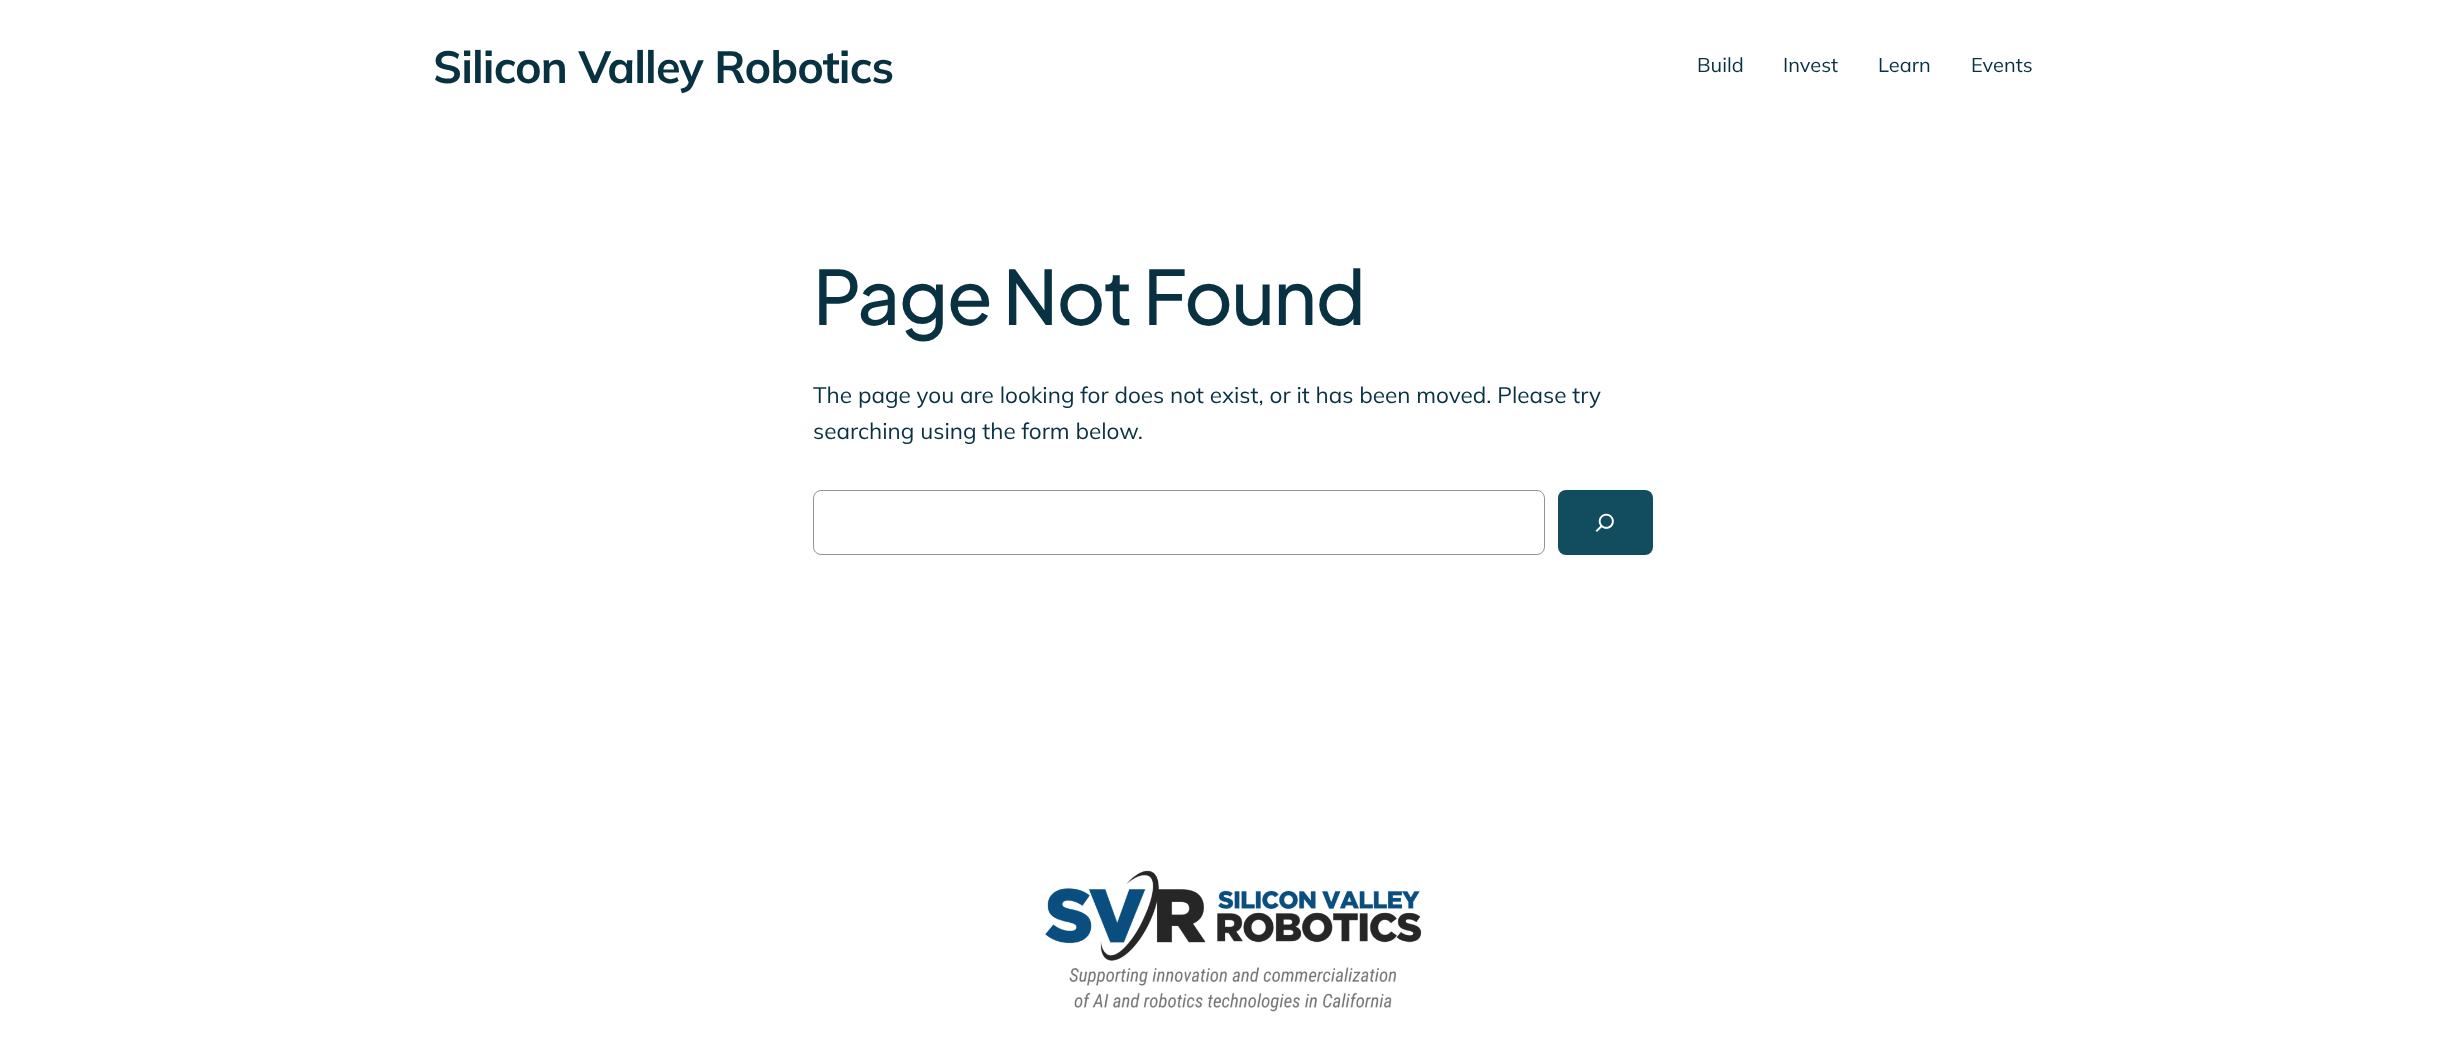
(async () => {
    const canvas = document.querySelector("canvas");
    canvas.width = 2464;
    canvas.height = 1064;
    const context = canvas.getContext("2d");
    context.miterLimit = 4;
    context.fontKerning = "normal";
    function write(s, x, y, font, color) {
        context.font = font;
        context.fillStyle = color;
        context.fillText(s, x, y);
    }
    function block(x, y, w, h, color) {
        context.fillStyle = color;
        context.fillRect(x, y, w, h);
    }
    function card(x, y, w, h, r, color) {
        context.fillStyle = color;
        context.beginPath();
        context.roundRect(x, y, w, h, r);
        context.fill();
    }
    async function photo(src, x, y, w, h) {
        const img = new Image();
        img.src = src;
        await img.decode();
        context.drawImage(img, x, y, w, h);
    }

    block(0, 0, 2464, 1064, "rgb(255, 255, 255)");
    context.letterSpacing = "-0.9px";
    write("Silicon Valley Robotics", 433, 83, "bold 45px Mulish", "rgb(8, 49, 65)");
    context.letterSpacing = "0px";
    write("Build", 1697, 72, "20px Mulish", "rgb(8, 49, 65)");
    write("Invest", 1783, 72, "20px Mulish", "rgb(8, 49, 65)");
    write("Learn", 1878, 72, "20px Mulish", "rgb(8, 49, 65)");
    write("Events", 1971, 72, "20px Mulish", "rgb(8, 49, 65)");
    context.letterSpacing = "-1.5px";
    write("Page Not Found", 813, 325, "500 75px Plus Jakarta Sans", "rgb(8, 49, 65)");
    context.letterSpacing = "0px";
    write("The page you are looking for does not exist, or it has been moved. Please try", 813, 403, "22.5px Mulish", "rgb(8, 49, 65)");
    write("searching using the form below.", 813, 439, "22.5px Mulish", "rgb(8, 49, 65)");
    context.beginPath();
    context.roundRect(813.5, 490.5, 731, 64, 7.5);
    context.strokeStyle = "rgb(148, 148, 148)";
    context.stroke();
    card(1558, 490, 95, 65, 8, "rgb(17, 76, 95)");
    await photo("media/1.png", 1595, 513, 19, 19);
    await photo("media/2.png", 1045, 870, 377, 142);
})();
